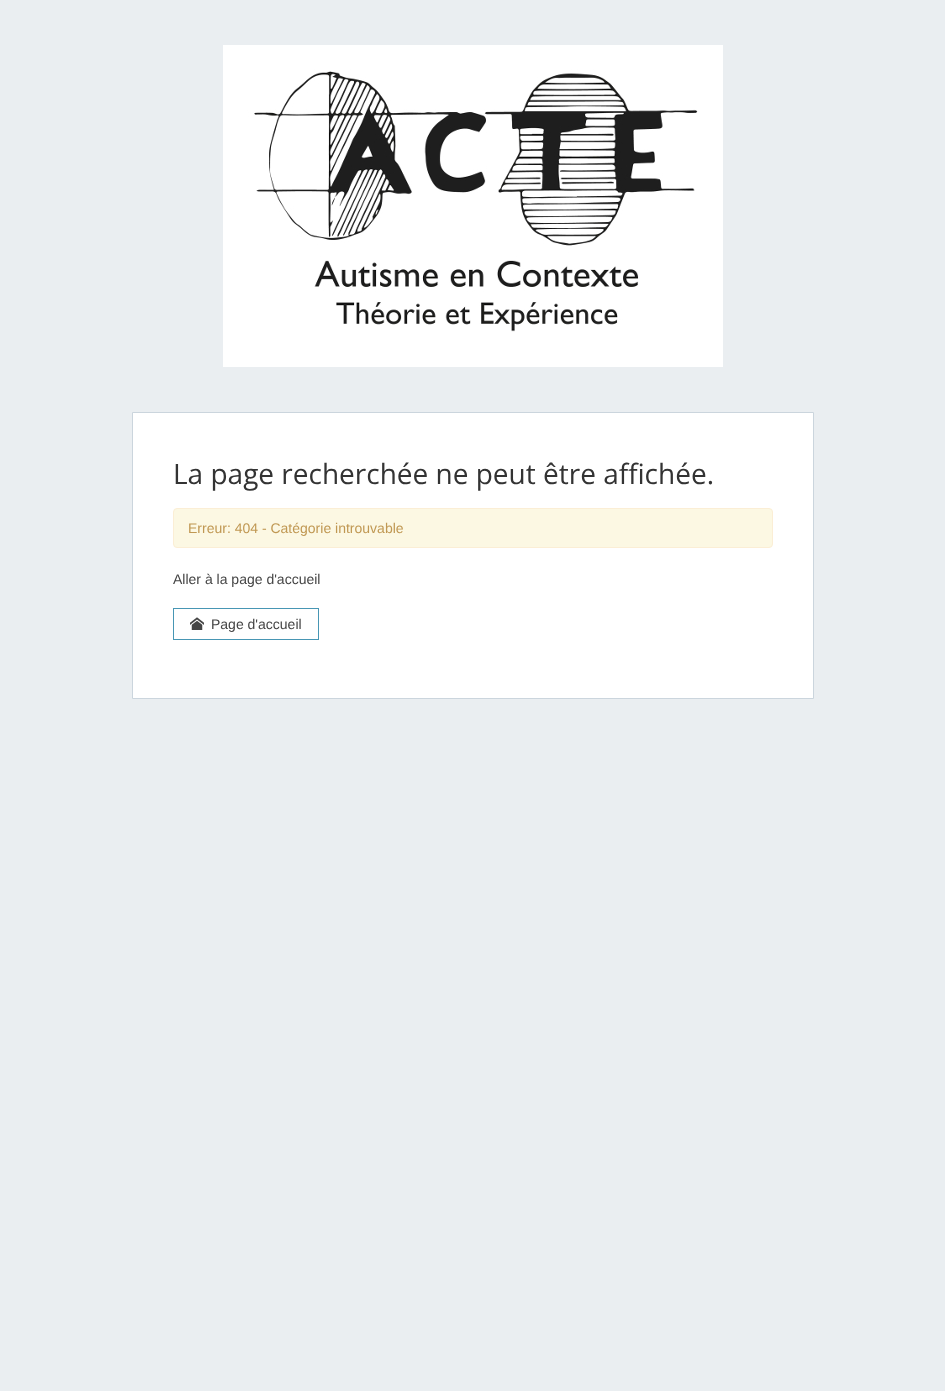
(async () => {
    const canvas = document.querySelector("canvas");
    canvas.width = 945;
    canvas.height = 1391;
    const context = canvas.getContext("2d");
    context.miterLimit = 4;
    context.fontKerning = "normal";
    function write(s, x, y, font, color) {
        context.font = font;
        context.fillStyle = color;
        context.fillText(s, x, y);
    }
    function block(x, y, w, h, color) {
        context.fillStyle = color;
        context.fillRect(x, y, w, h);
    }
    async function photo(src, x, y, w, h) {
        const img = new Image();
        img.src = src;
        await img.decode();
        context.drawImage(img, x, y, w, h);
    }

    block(0, 0, 945, 1391, "rgb(234, 238, 241)");
    await photo("media/1.png", 223, 45, 500, 322);
    context.fillStyle = "rgb(255, 255, 255)";
    context.beginPath();
    context.rect(132.5, 412.5, 681, 286);
    context.fill();
    context.strokeStyle = "rgb(203, 213, 221)";
    context.stroke();
    write("La page recherchée ne peut être affichée.", 173, 484, "28px Open Sans", "rgb(51, 51, 51)");
    context.fillStyle = "rgb(252, 248, 227)";
    context.beginPath();
    context.roundRect(173.5, 508.5, 599, 39, 3.5);
    context.fill();
    context.strokeStyle = "rgb(251, 238, 213)";
    context.stroke();
    write("Erreur: 404 - Catégorie introuvable", 188, 533, "14px Liberation Sans", "rgb(192, 152, 83)");
    write("Aller à la page d'accueil", 173, 584, "14px Liberation Sans", "rgb(68, 68, 68)");
    context.strokeStyle = "rgb(71, 150, 180)";
    context.strokeRect(173.5, 608.5, 145, 31);
    await photo("media/2.png", 190, 617, 14, 13);
    write("Page d'accueil", 211, 629, "14px Liberation Sans", "rgb(68, 68, 68)");
})();
